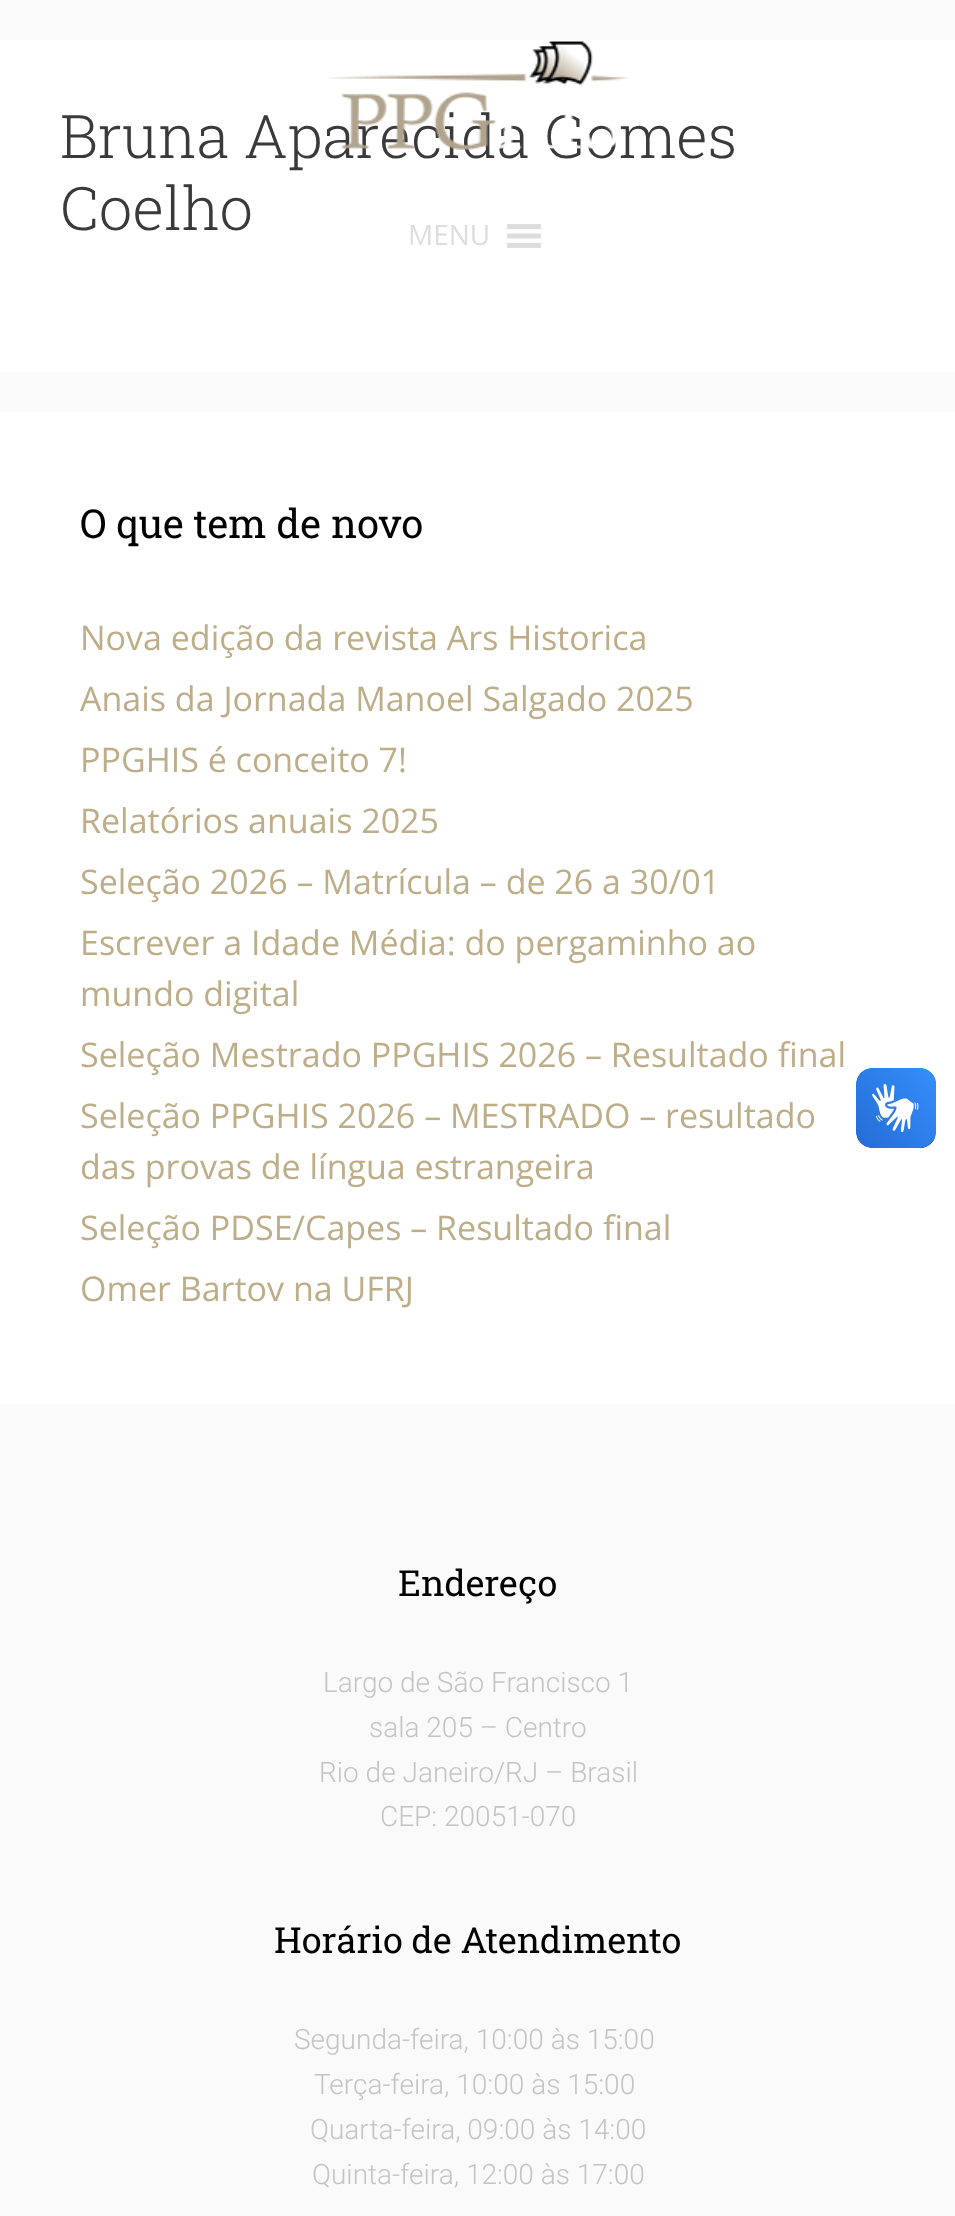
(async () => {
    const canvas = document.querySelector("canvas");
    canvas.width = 955;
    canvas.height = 2216;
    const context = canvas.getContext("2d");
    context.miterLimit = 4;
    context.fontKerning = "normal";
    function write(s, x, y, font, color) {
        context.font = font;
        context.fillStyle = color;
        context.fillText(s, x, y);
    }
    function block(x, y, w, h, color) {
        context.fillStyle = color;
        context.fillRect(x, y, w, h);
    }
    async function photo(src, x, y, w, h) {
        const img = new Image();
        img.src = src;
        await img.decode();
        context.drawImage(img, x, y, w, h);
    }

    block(0, 0, 955, 2216, "rgb(250, 250, 250)");
    block(0, 40, 955, 332, "rgb(255, 255, 255)");
    write("Bruna Aparecida Gomes", 60, 158, "300 60px Roboto Slab", "rgb(58, 58, 58)");
    write("Coelho", 60, 230, "300 60px Roboto Slab", "rgb(58, 58, 58)");
    block(0, 412, 955, 992, "rgb(255, 255, 255)");
    write("O que tem de novo", 80, 538, "40px Roboto Slab", "rgb(0, 0, 0)");
    write("Nova edição da revista Ars Historica", 80, 650, "34px Open Sans", "rgb(189, 173, 136)");
    write("Anais da Jornada Manoel Salgado 2025", 80, 711, "34px Open Sans", "rgb(189, 173, 136)");
    write("PPGHIS é conceito 7!", 80, 772, "34px Open Sans", "rgb(189, 173, 136)");
    write("Relatórios anuais 2025", 80, 833, "34px Open Sans", "rgb(189, 173, 136)");
    write("Seleção 2026 – Matrícula – de 26 a 30/01", 80, 894, "34px Open Sans", "rgb(189, 173, 136)");
    write("Escrever a Idade Média: do pergaminho ao", 80, 955, "34px Open Sans", "rgb(189, 173, 136)");
    write("mundo digital", 80, 1006, "34px Open Sans", "rgb(189, 173, 136)");
    write("Seleção Mestrado PPGHIS 2026 – Resultado final", 80, 1067, "34px Open Sans", "rgb(189, 173, 136)");
    write("Seleção PPGHIS 2026 – MESTRADO – resultado", 80, 1128, "34px Open Sans", "rgb(189, 173, 136)");
    write("das provas de língua estrangeira", 80, 1179, "34px Open Sans", "rgb(189, 173, 136)");
    write("Seleção PDSE/Capes – Resultado final", 80, 1240, "34px Open Sans", "rgb(189, 173, 136)");
    write("Omer Bartov na UFRJ", 80, 1301, "34px Open Sans", "rgb(189, 173, 136)");
    await photo("media/1.png", 328, 41, 300, 110);
    write("MENU", 408, 245, "28px Open Sans", "rgb(221, 221, 221)");
    context.beginPath();
    context.moveTo(507, 248);
    context.lineTo(541, 248);
    context.lineTo(541, 243);
    context.lineTo(507, 243);
    context.closePath();
    context.moveTo(507, 224);
    context.lineTo(507, 229);
    context.lineTo(541, 229);
    context.lineTo(541, 224);
    context.closePath();
    context.moveTo(507, 238.5);
    context.lineTo(541, 238.5);
    context.lineTo(541, 233.5);
    context.lineTo(507, 233.5);
    context.closePath();
    context.fill();
    await photo("media/2.png", 856, 1068, 80, 80);
    await photo("media/3.png", 856, 1068, 80, 80);
    write("Endereço", 398, 1596, "36px Roboto Slab", "rgb(0, 0, 0)");
    write("Largo de São Francisco 1", 323, 1692, "300 28px Roboto", "rgb(196, 196, 196)");
    write("sala 205 – Centro", 369, 1737, "300 28px Roboto", "rgb(196, 196, 196)");
    write("Rio de Janeiro/RJ – Brasil", 319, 1782, "300 28px Roboto", "rgb(196, 196, 196)");
    write("CEP: 20051-070", 380, 1826, "300 28px Roboto", "rgb(196, 196, 196)");
    write("Horário de Atendimento", 274, 1953, "36px Roboto Slab", "rgb(0, 0, 0)");
    write("Segunda-feira, 10:00 às 15:00", 294, 2049, "300 28px Roboto", "rgb(196, 196, 196)");
    write("Terça-feira, 10:00 às 15:00", 314, 2094, "300 28px Roboto", "rgb(196, 196, 196)");
    write("Quarta-feira, 09:00 às 14:00", 310, 2139, "300 28px Roboto", "rgb(196, 196, 196)");
    write("Quinta-feira, 12:00 às 17:00", 312, 2184, "300 28px Roboto", "rgb(196, 196, 196)");
})();
